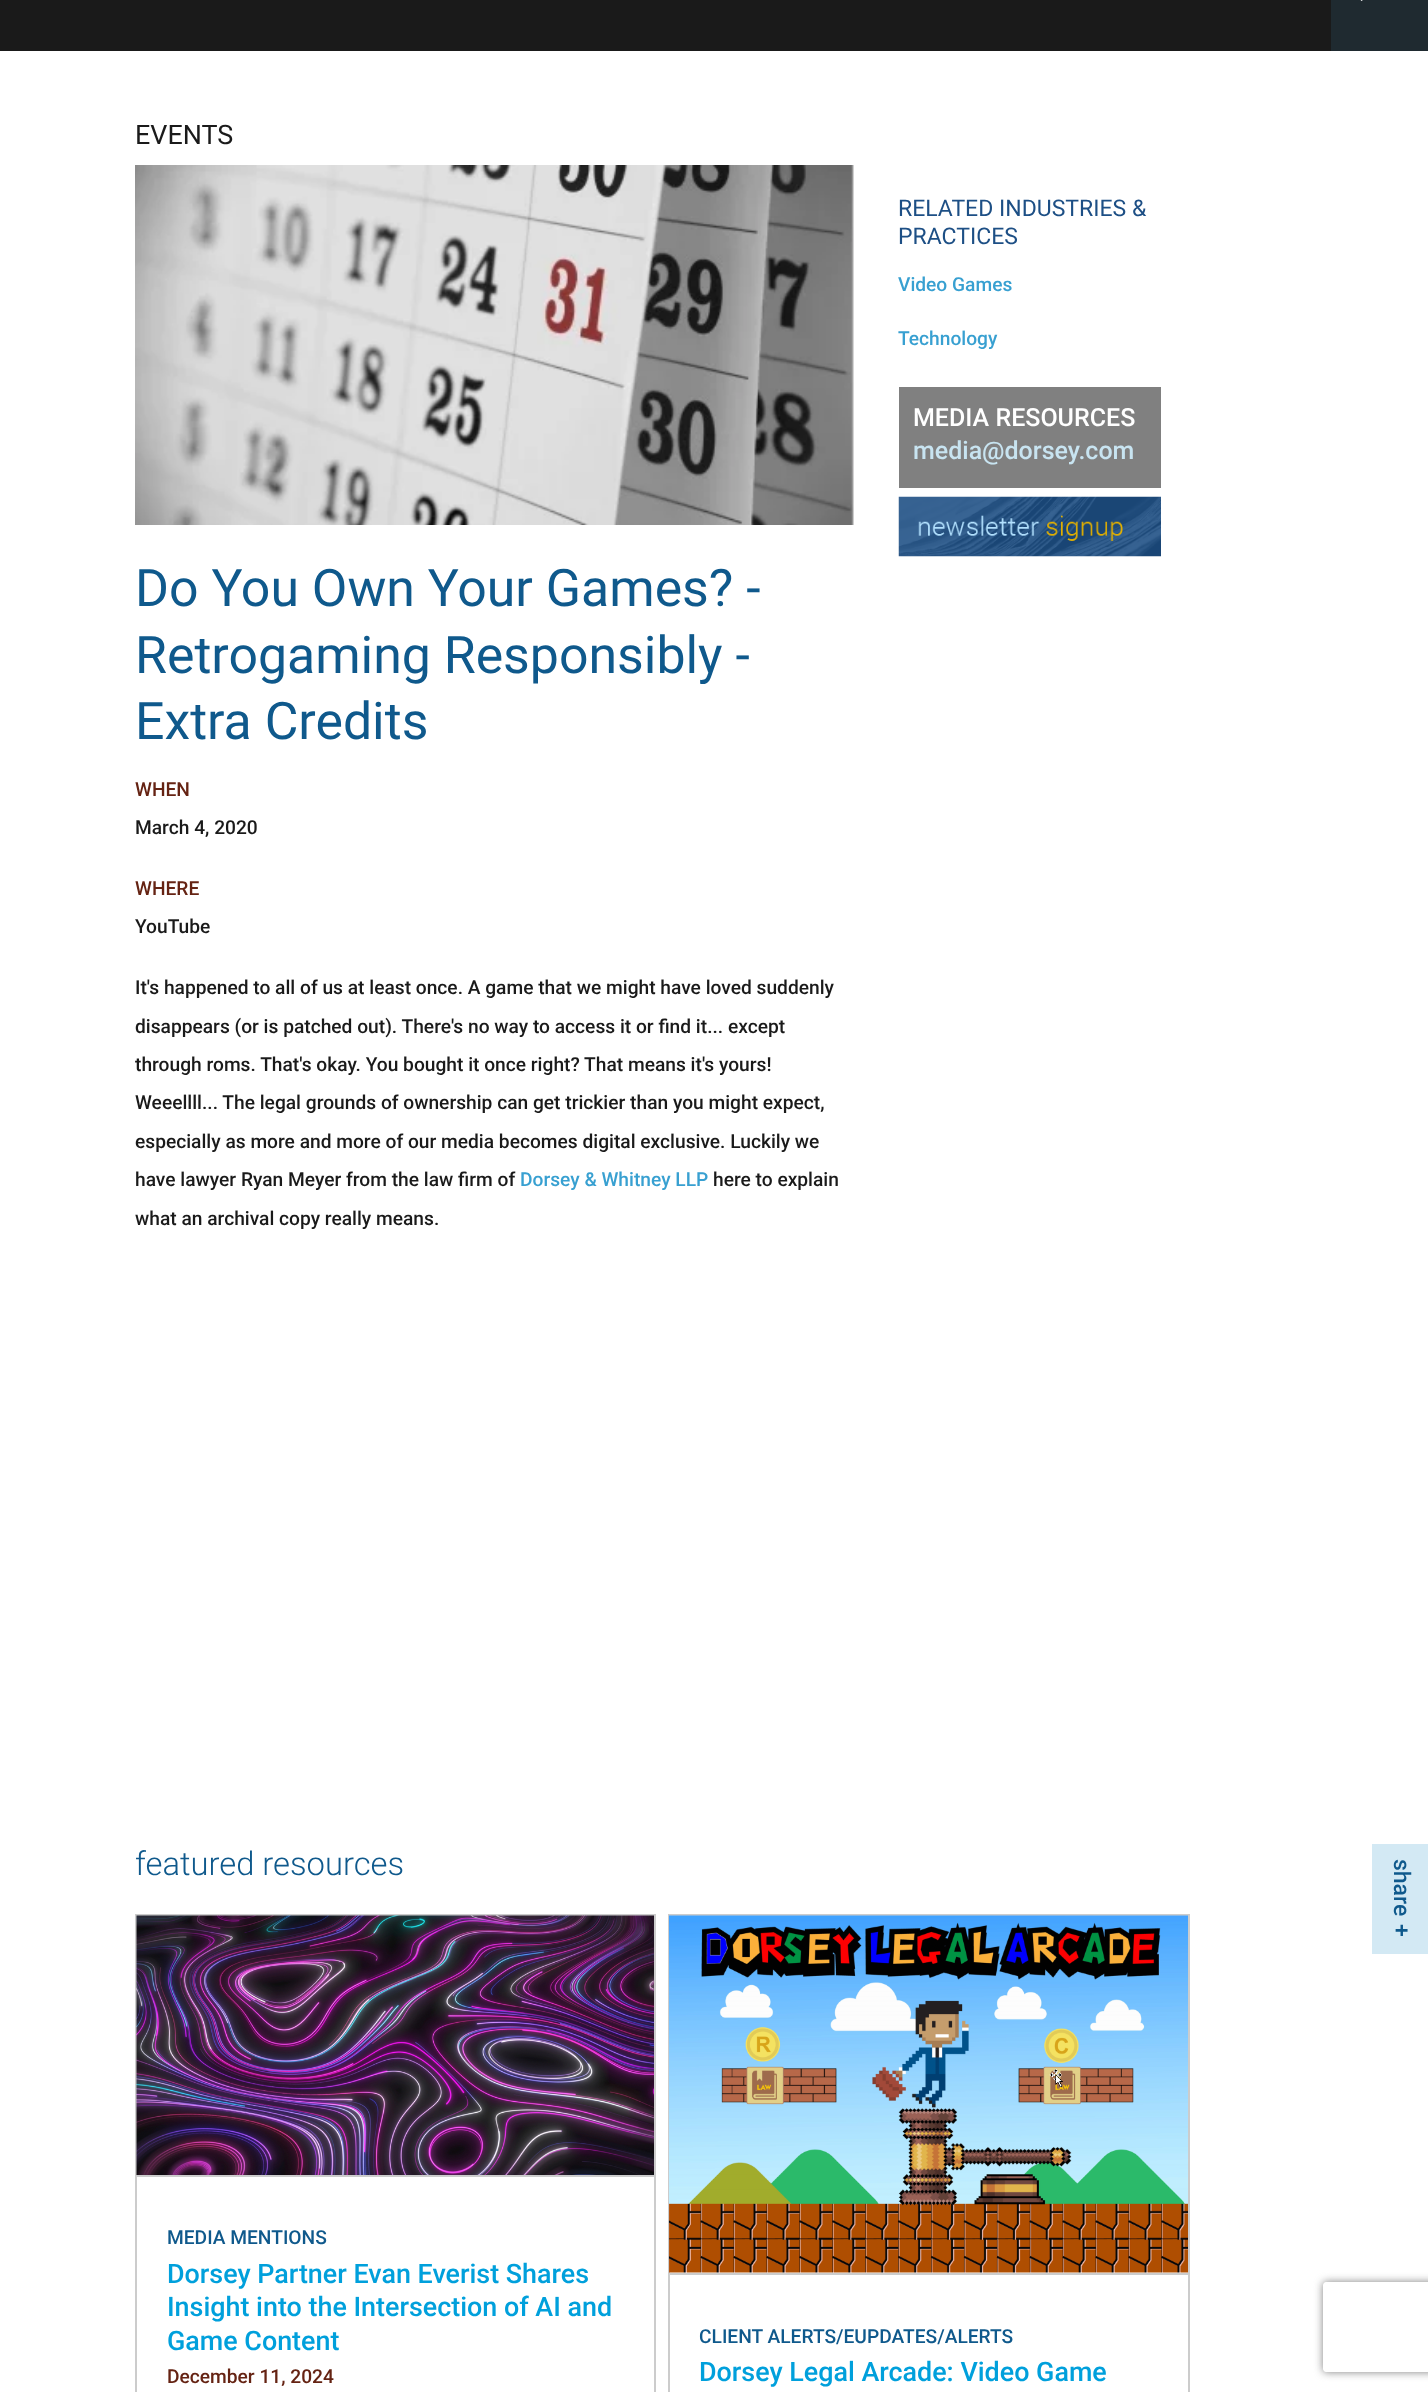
(async () => {
    const canvas = document.querySelector("canvas");
    canvas.width = 1428;
    canvas.height = 2392;
    const context = canvas.getContext("2d");
    context.miterLimit = 4;
    context.fontKerning = "normal";
    function write(s, x, y, font, color) {
        context.font = font;
        context.fillStyle = color;
        context.fillText(s, x, y);
    }
    function block(x, y, w, h, color) {
        context.fillStyle = color;
        context.fillRect(x, y, w, h);
    }
    async function photo(src, x, y, w, h) {
        const img = new Image();
        img.src = src;
        await img.decode();
        context.drawImage(img, x, y, w, h);
    }

    block(0, 0, 1428, 2392, "rgb(255, 255, 255)");
    block(0, 0, 1331, 51, "rgb(26, 26, 26)");
    block(1331, 0, 97, 51, "rgb(31, 42, 48)");
    await photo("media/1.png", 1360, 0, 3, 1);
    write("EVENTS", 135, 144, "26.9px Roboto", "rgb(26, 26, 26)");
    write("RELATED INDUSTRIES &", 898, 216, "23px Roboto", "rgb(29, 79, 133)");
    write("PRACTICES", 898, 244, "23px Roboto", "rgb(29, 79, 133)");
    write("Video Games", 898, 291, "500 19.2px Roboto", "rgb(56, 160, 209)");
    write("Technology", 898, 345, "500 19.2px Roboto", "rgb(56, 160, 209)");
    block(899, 387, 262, 101, "rgb(128, 128, 128)");
    write("MEDIA RESOURCES", 913, 426, "500 25px Roboto", "rgb(255, 255, 255)");
    write("media@dorsey.com", 913, 459, "500 25px Roboto", "rgb(200, 228, 241)");
    await photo("media/2.png", 898, 496, 263, 61);
    await photo("media/3.png", 135, 165, 719, 360);
    write("Do You Own Your Games? -", 135, 606, "51.8px Roboto", "rgb(15, 89, 140)");
    write("Retrogaming Responsibly -", 135, 673, "51.8px Roboto", "rgb(15, 89, 140)");
    write("Extra Credits", 135, 739, "51.8px Roboto", "rgb(15, 89, 140)");
    write("WHEN", 135, 796, "500 19.2px Roboto", "rgb(101, 35, 19)");
    write("March 4, 2020", 135, 834, "500 19.2px Roboto", "rgb(26, 26, 26)");
    write("WHERE", 135, 895, "500 19.2px Roboto", "rgb(101, 35, 19)");
    write("YouTube", 135, 933, "500 19.2px Roboto", "rgb(26, 26, 26)");
    write("It's happened to all of us at least once. A game that we might have loved suddenly", 135, 994, "500 19.2px Roboto", "rgb(26, 26, 26)");
    write("disappears (or is patched out). There's no way to access it or find it... except", 135, 1033, "500 19.2px Roboto", "rgb(26, 26, 26)");
    write("through roms. That's okay. You bought it once right? That means it's yours!", 135, 1071, "500 19.2px Roboto", "rgb(26, 26, 26)");
    write("Weeellll... The legal grounds of ownership can get trickier than you might expect,", 135, 1109, "500 19.2px Roboto", "rgb(26, 26, 26)");
    write("especially as more and more of our media becomes digital exclusive. Luckily we", 135, 1148, "500 19.2px Roboto", "rgb(26, 26, 26)");
    write("have lawyer Ryan Meyer from the law firm of", 135, 1186, "500 19.2px Roboto", "rgb(26, 26, 26)");
    write("Dorsey & Whitney LLP", 520, 1186, "500 19.2px Roboto", "rgb(56, 160, 209)");
    write("here to explain", 713, 1186, "500 19.2px Roboto", "rgb(26, 26, 26)");
    write("what an archival copy really means.", 135, 1225, "500 19.2px Roboto", "rgb(26, 26, 26)");
    write("featured resources", 135, 1875, "300 32.75px Roboto", "rgb(15, 89, 140)");
    context.strokeStyle = "rgb(204, 204, 204)";
    context.lineWidth = 2;
    context.strokeRect(136, 1915, 519, 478);
    await photo("media/4.png", 136, 1915, 518, 260);
    block(137, 2175, 517, 2, "rgb(204, 204, 204)");
    write("MEDIA MENTIONS", 167, 2244, "500 19.2px Roboto", "rgb(15, 89, 140)");
    write("Dorsey Partner Evan Everist Shares", 167, 2283, "500 26.9px Roboto", "rgb(0, 160, 220)");
    write("Insight into the Intersection of AI and", 167, 2316, "500 26.9px Roboto", "rgb(0, 160, 220)");
    write("Game Content", 167, 2350, "500 26.9px Roboto", "rgb(0, 160, 220)");
    write("December 11, 2024", 167, 2383, "500 19.2px Roboto", "rgb(101, 35, 19)");
    context.strokeRect(669, 1915, 520, 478);
    await photo("media/5.png", 669, 1915, 519, 358);
    block(669, 2273, 519, 2, "rgb(204, 204, 204)");
    write("CLIENT ALERTS/EUPDATES/ALERTS", 699, 2343, "500 19.2px Roboto", "rgb(15, 89, 140)");
    write("Dorsey Legal Arcade: Video Game", 699, 2381, "500 26.9px Roboto", "rgb(0, 160, 220)");
    block(1372, 1844, 56, 110, "rgb(211, 233, 244)");
    context.font = "500 23px Roboto";
    context.fillStyle = "rgb(15, 89, 140)";
    context.save();
    context.translate(1394, 1859);
    context.rotate(90 * Math.PI / 180);
    context.fillText("share", 0, 0);
    context.restore();
    context.save();
    context.translate(1394, 1924);
    context.rotate(90 * Math.PI / 180);
    context.fillText("+", 0, 0);
    context.restore();
    context.save();
    context.beginPath();
    context.moveTo(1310, 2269);
    context.lineTo(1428, 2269);
    context.lineTo(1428, 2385);
    context.lineTo(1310, 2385);
    context.closePath();
    context.moveTo(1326, 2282);
    context.lineTo(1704, 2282);
    context.bezierCurveTo(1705.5, 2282, 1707, 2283.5, 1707, 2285);
    context.lineTo(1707, 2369);
    context.bezierCurveTo(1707, 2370.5, 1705.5, 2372, 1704, 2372);
    context.lineTo(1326, 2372);
    context.bezierCurveTo(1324.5, 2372, 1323, 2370.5, 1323, 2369);
    context.lineTo(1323, 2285);
    context.bezierCurveTo(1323, 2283.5, 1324.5, 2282, 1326, 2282);
    context.closePath();
    context.clip("evenodd");
    context.fillStyle = "rgb(128, 128, 128)";
    context.filter = "blur(4px)";
    context.beginPath();
    context.roundRect(1323, 2282, 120, 90, 3);
    context.fill();
    context.filter = "none";
    context.restore();
})();
